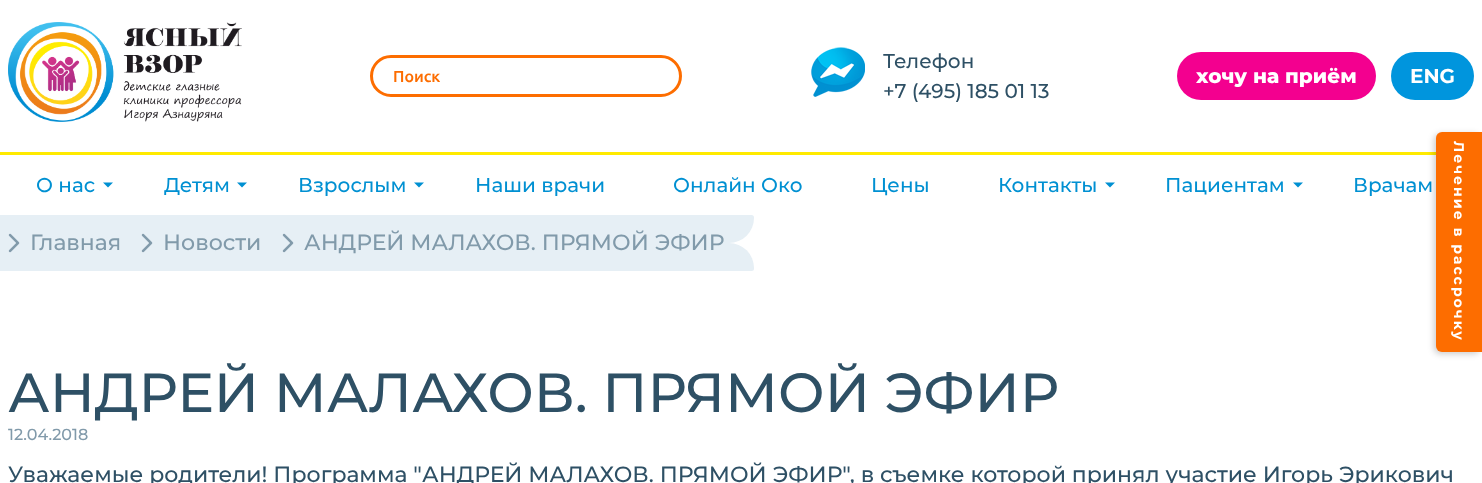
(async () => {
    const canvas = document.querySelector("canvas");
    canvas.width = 1482;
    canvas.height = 483;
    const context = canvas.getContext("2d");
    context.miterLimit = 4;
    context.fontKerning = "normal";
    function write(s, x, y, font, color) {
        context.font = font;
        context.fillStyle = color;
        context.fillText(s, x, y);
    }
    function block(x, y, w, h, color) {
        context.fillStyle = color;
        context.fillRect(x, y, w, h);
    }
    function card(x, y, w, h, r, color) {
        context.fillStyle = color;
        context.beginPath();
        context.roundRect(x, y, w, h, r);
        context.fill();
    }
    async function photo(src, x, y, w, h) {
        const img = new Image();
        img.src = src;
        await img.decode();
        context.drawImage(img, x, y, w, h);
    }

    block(0, 0, 1482, 483, "rgb(255, 255, 255)");
    block(0, 152, 1436, 3, "rgb(255, 234, 0)");
    await photo("media/1.png", 8, 22, 234, 100);
    context.beginPath();
    context.roundRect(371.5, 56.5, 309, 39, 19.5);
    context.strokeStyle = "rgb(253, 109, 0)";
    context.lineWidth = 3;
    context.stroke();
    write("Поиск", 393, 82, "500 16px Ubuntu", "rgb(253, 109, 0)");
    await photo("media/2.png", 811, 47, 54, 50);
    write("Телефон", 883, 68, "500 20px Montserrat", "rgb(46, 80, 101)");
    write("+7 (495) 185 01 13", 883, 98, "500 20px Montserrat", "rgb(46, 80, 101)");
    card(1177, 52, 199, 48, 24, "rgb(243, 0, 143)");
    write("хочу на приём", 1196, 83, "800 20px Montserrat", "rgb(255, 255, 255)");
    card(1391, 52, 83, 48, 24, "rgb(0, 149, 221)");
    write("ENG", 1410, 83, "bold 20px Montserrat", "rgb(255, 255, 255)");
    write("О нас", 36, 192, "500 20px Montserrat", "rgb(0, 144, 210)");
    context.beginPath();
    context.moveTo(103, 182.5);
    context.lineTo(113, 182.5);
    context.lineTo(108, 187.5);
    context.closePath();
    context.fill();
    write("Детям", 164, 192, "500 20px Montserrat", "rgb(0, 144, 210)");
    context.beginPath();
    context.moveTo(237, 182.5);
    context.lineTo(247, 182.5);
    context.lineTo(242, 187.5);
    context.closePath();
    context.fill();
    write("Взрослым", 298, 192, "500 20px Montserrat", "rgb(0, 144, 210)");
    context.beginPath();
    context.moveTo(414, 182.5);
    context.lineTo(424, 182.5);
    context.lineTo(419, 187.5);
    context.closePath();
    context.fill();
    write("Наши врачи", 475, 192, "500 20px Montserrat", "rgb(0, 144, 210)");
    write("Онлайн Око", 673, 192, "500 20px Montserrat", "rgb(0, 144, 210)");
    write("Цены", 871, 192, "500 20px Montserrat", "rgb(0, 144, 210)");
    write("Контакты", 998, 192, "500 20px Montserrat", "rgb(0, 144, 210)");
    context.beginPath();
    context.moveTo(1105, 182.5);
    context.lineTo(1115, 182.5);
    context.lineTo(1110, 187.5);
    context.closePath();
    context.fill();
    write("Пациентам", 1165, 192, "500 20px Montserrat", "rgb(0, 144, 210)");
    context.beginPath();
    context.moveTo(1293, 182.5);
    context.lineTo(1303, 182.5);
    context.lineTo(1298, 187.5);
    context.closePath();
    context.fill();
    write("Врачам", 1353, 192, "500 20px Montserrat", "rgb(0, 144, 210)");
    block(0, 215, 8, 56, "rgb(230, 239, 245)");
    context.beginPath();
    context.roundRect(8, 215, 746, 28, [0, 2.5, 25, 0]);
    context.fill();
    context.beginPath();
    context.roundRect(8, 243, 746, 28, [0, 25, 2.5, 0]);
    context.fill();
    await photo("media/3.png", 8, 233, 12, 20);
    write("Главная", 30, 250, "500 22px Montserrat", "rgb(129, 154, 170)");
    await photo("media/3.png", 141, 233, 12, 20);
    write("Новости", 163, 250, "500 22px Montserrat", "rgb(129, 154, 170)");
    await photo("media/3.png", 282, 233, 12, 20);
    write("АНДРЕЙ МАЛАХОВ. ПРЯМОЙ ЭФИР", 304, 250, "500 22px Montserrat", "rgb(129, 154, 170)");
    context.fillStyle = "rgba(0, 0, 0, 0.2)";
    context.filter = "blur(3px)";
    context.beginPath();
    context.roundRect(1434, 134, 46, 220, 6);
    context.fill();
    context.filter = "none";
    context.fillStyle = "rgb(253, 109, 0)";
    context.beginPath();
    context.roundRect(1436, 132, 46, 220, [6, 0, 0, 6]);
    context.fill();
    context.letterSpacing = "2px";
    context.font = "bold 14px Montserrat";
    context.fillStyle = "rgb(255, 255, 255)";
    context.save();
    context.translate(1454, 141);
    context.rotate(90 * Math.PI / 180);
    context.fillText("Лечение в рассрочку", 0, 0);
    context.restore();
    context.letterSpacing = "0px";
    write("АНДРЕЙ МАЛАХОВ. ПРЯМОЙ ЭФИР", 8, 412, "500 55px Montserrat", "rgb(46, 80, 101)");
    write("12.04.2018", 8, 440, "500 16px Montserrat", "rgb(129, 154, 170)");
    write("Уважаемые родители! Программа \"АНДРЕЙ МАЛАХОВ. ПРЯМОЙ ЭФИР\", в съемке которой принял участие Игорь Эрикович", 8, 482, "500 22px Montserrat", "rgb(46, 80, 101)");
})();
